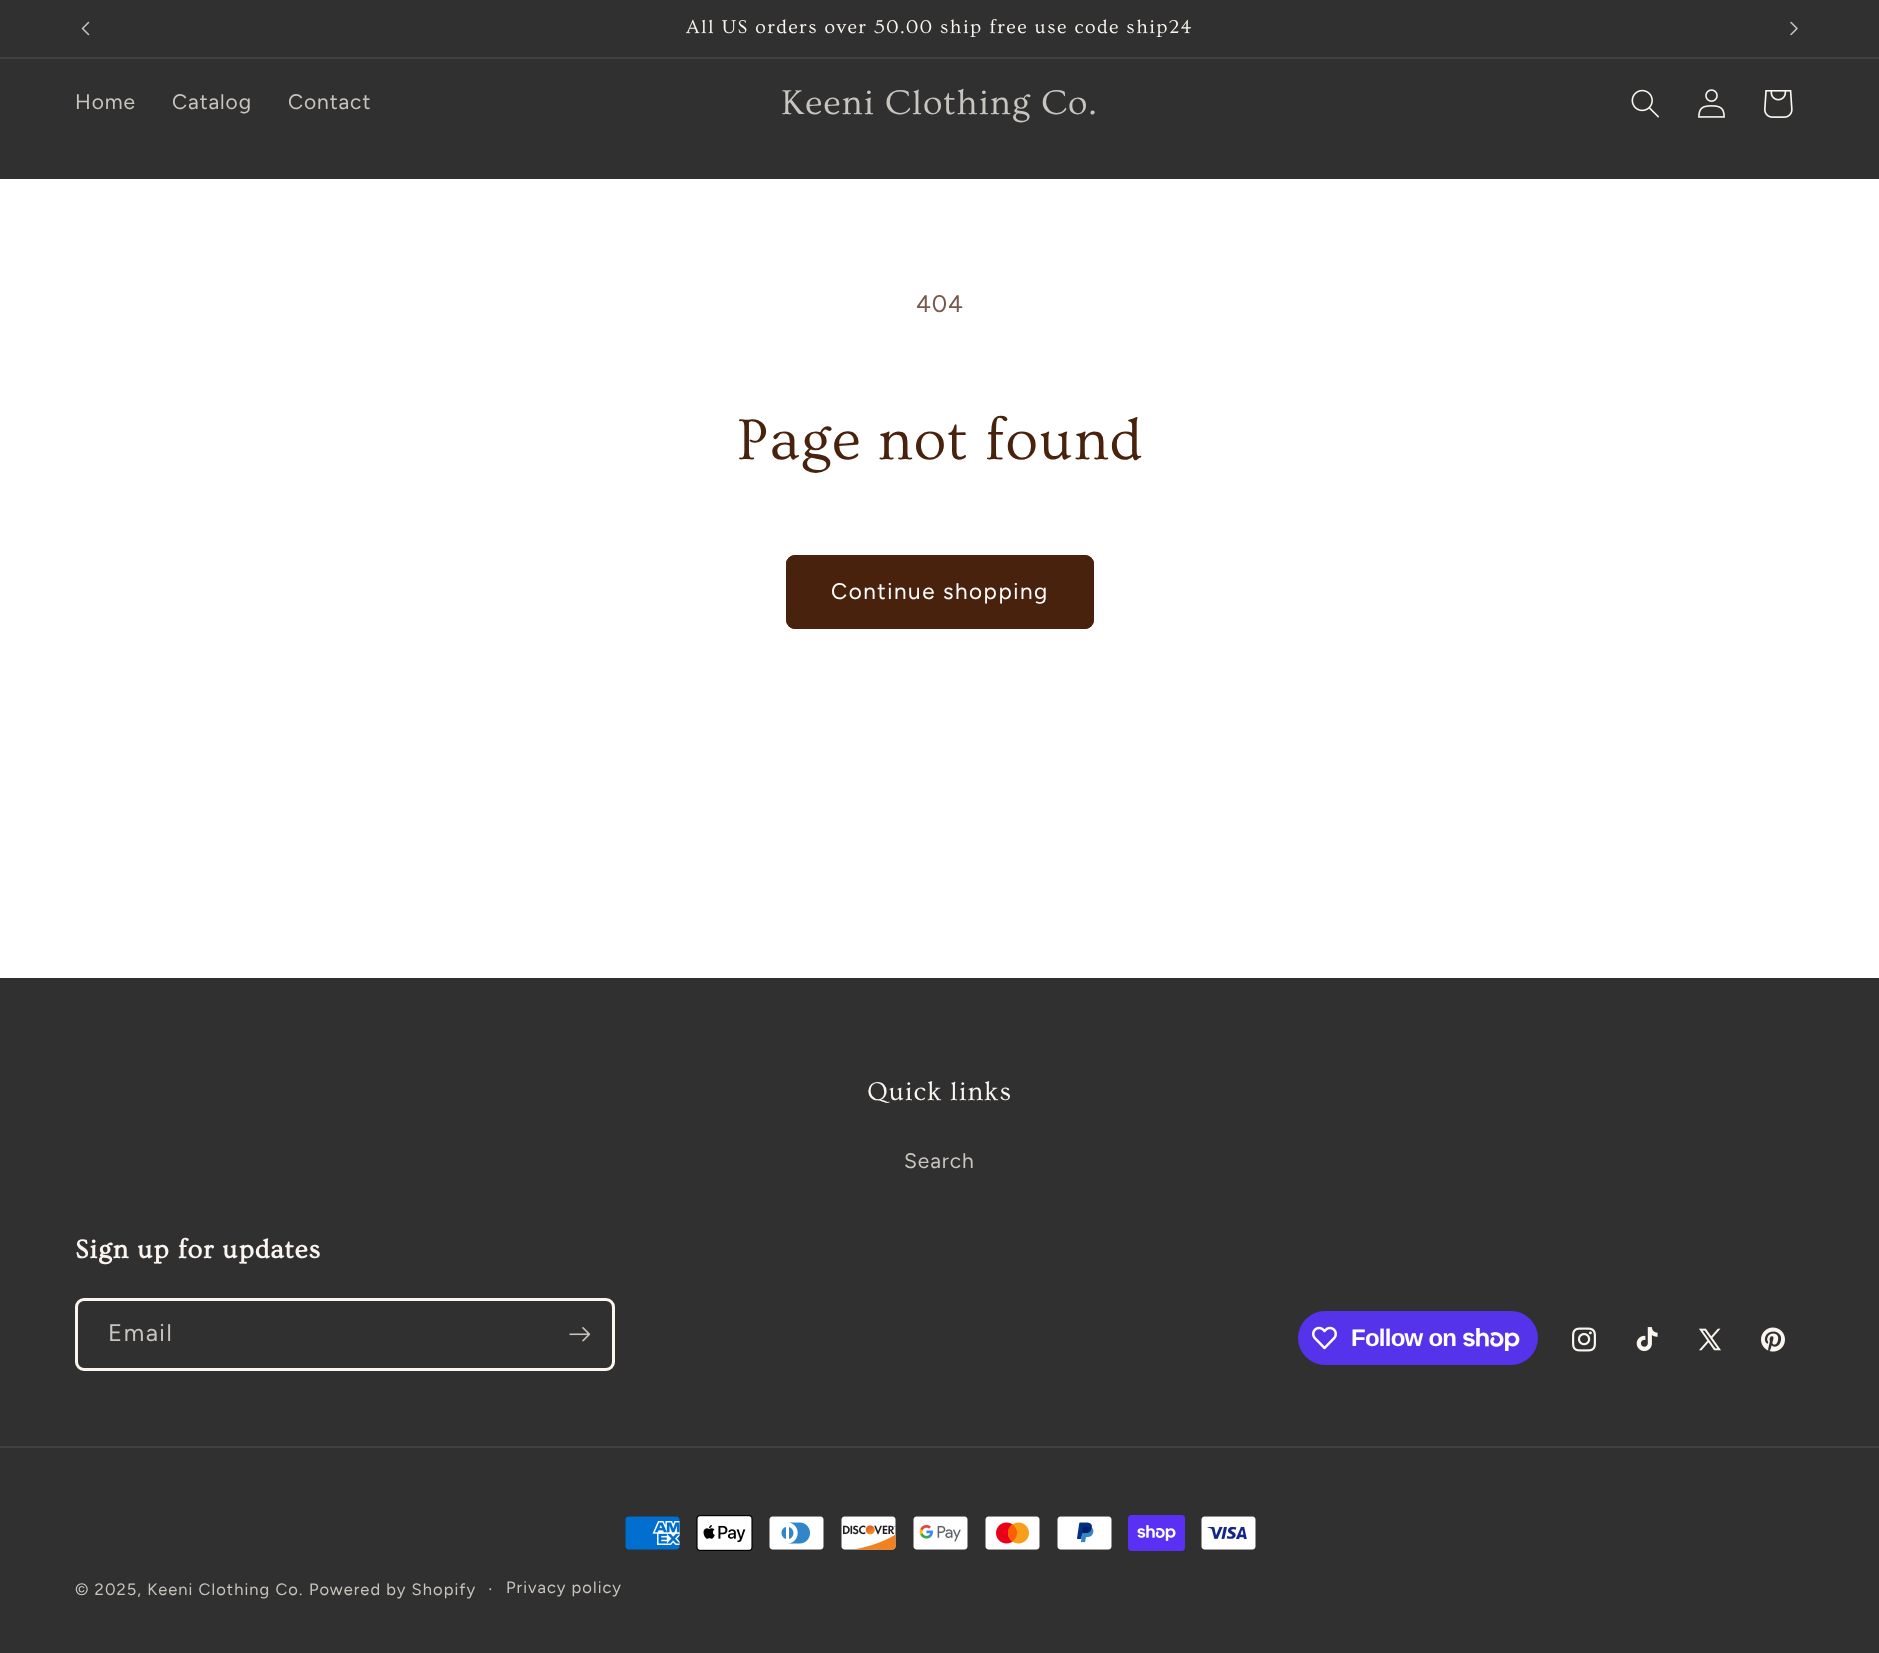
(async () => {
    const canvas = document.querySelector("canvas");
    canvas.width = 1879;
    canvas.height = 1653;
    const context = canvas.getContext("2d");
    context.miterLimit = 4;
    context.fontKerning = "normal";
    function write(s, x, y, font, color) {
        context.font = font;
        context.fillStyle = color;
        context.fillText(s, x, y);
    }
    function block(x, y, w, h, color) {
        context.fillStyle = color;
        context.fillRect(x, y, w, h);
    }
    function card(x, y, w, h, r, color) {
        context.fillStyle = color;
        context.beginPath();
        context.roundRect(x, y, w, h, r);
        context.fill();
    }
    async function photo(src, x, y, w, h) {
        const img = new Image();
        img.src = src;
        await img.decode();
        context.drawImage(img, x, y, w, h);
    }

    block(0, 0, 1879, 1653, "rgb(255, 255, 255)");
    block(0, 0, 1879, 57, "rgb(48, 48, 48)");
    block(0, 57, 1879, 2, "rgb(64, 64, 63)");
    await photo("media/1.png", 81, 21, 9, 15);
    context.letterSpacing = "1.5px";
    write("All US orders over 50.00 ship free use code ship24", 686, 33, "19.5px Ovo", "rgb(250, 245, 239)");
    await photo("media/2.png", 1790, 21, 8, 15);
    block(0, 59, 1879, 120, "rgb(48, 48, 48)");
    context.letterSpacing = "0.9px";
    write("Home", 75, 109, "21px Figtree", "rgb(200, 196, 191)");
    write("Catalog", 172, 109, "21px Figtree", "rgb(200, 196, 191)");
    write("Contact", 288, 109, "21px Figtree", "rgb(200, 196, 191)");
    write("Keeni Clothing Co.", 781, 114, "36px Ovo", "rgb(200, 196, 191)");
    await photo("media/3.png", 1631, 89, 28, 29);
    await photo("media/4.png", 1698, 89, 27, 29);
    await photo("media/5.png", 1764, 90, 29, 28);
    write("404", 916, 312, "24px Figtree", "rgb(119, 89, 74)");
    write("Page not found", 737, 459, "60px Ovo", "rgb(73, 34, 13)");
    card(786, 555, 308, 74, 9, "rgb(73, 34, 13)");
    context.beginPath();
    context.roundRect(787.5, 556.5, 305, 71, 7.5);
    context.strokeStyle = "rgb(73, 34, 13)";
    context.lineWidth = 3;
    context.stroke();
    context.letterSpacing = "1.5px";
    write("Continue shopping", 831, 599, "22.5px Figtree", "rgb(255, 255, 255)");
    block(0, 978, 1879, 675, "rgb(48, 48, 48)");
    context.letterSpacing = "0.9px";
    write("Quick links", 867, 1100, "27px Ovo", "rgb(250, 245, 239)");
    write("Search", 904, 1168, "21px Figtree", "rgb(200, 196, 191)");
    write("Sign up for updates", 75, 1258, "bold 27px Ovo", "rgb(250, 245, 239)");
    context.beginPath();
    context.roundRect(76.5, 1299.5, 537, 70, 7.5);
    context.strokeStyle = "rgb(250, 245, 239)";
    context.stroke();
    context.letterSpacing = "1.5px";
    write("Email", 108, 1341, "24px Figtree", "rgb(200, 196, 191)");
    await photo("media/6.png", 569, 1327, 22, 15);
    card(1298, 1311, 240, 54, 27, "rgb(84, 51, 235)");
    await photo("media/7.png", 1312, 1326, 25, 24);
    context.letterSpacing = "-0.75px";
    write("Follow on", 1351, 1346, "bold 24px Liberation Sans", "rgb(255, 255, 255)");
    await photo("media/8.png", 1463, 1328, 57, 23);
    await photo("media/9.png", 1572, 1327, 24, 25);
    await photo("media/10.png", 1636, 1327, 22, 25);
    await photo("media/11.png", 1699, 1328, 22, 23);
    await photo("media/12.png", 1761, 1327, 24, 25);
    block(0, 1446, 1879, 2, "rgb(64, 64, 63)");
    await photo("media/13.png", 625, 1516, 55, 34);
    await photo("media/14.png", 696, 1515, 57, 36);
    await photo("media/15.png", 769, 1516, 55, 34);
    await photo("media/16.png", 841, 1516, 55, 34);
    await photo("media/17.png", 913, 1516, 55, 34);
    await photo("media/18.png", 985, 1516, 55, 34);
    await photo("media/19.png", 1057, 1516, 55, 34);
    await photo("media/20.png", 1128, 1515, 57, 36);
    await photo("media/21.png", 1201, 1516, 55, 34);
    context.letterSpacing = "1.05px";
    write("© 2025, Keeni Clothing Co.", 75, 1595, "16.5px Figtree", "rgb(200, 196, 191)");
    write("Powered by Shopify", 309, 1595, "16.5px Figtree", "rgb(200, 196, 191)");
    write("·", 488, 1595, "18px Figtree", "rgb(200, 196, 191)");
    write("Privacy policy", 506, 1593, "16.5px Figtree", "rgb(200, 196, 191)");
})();
